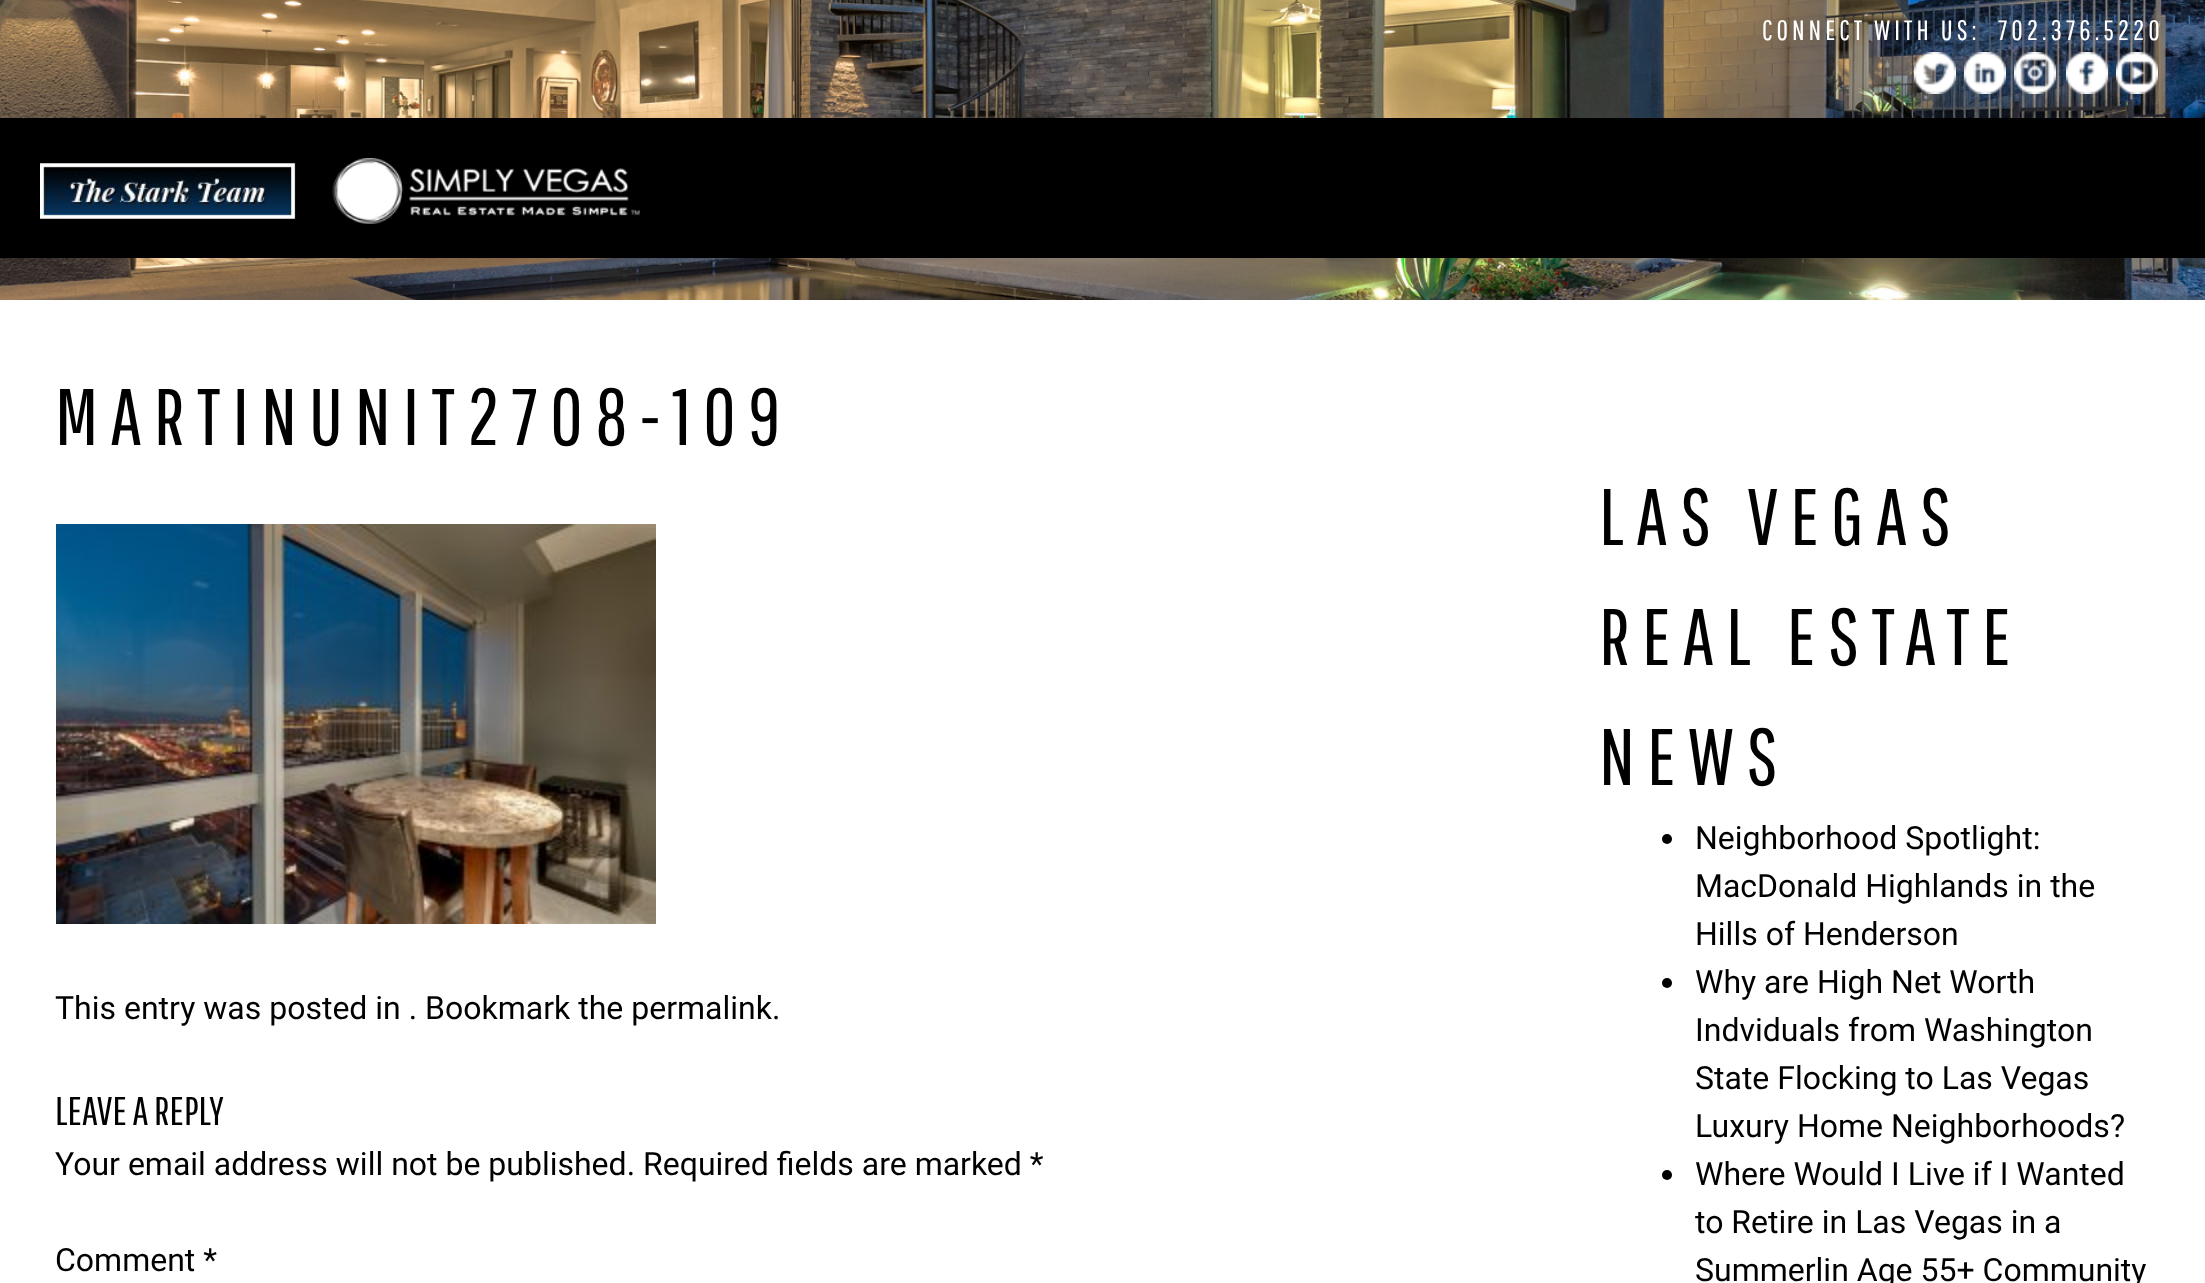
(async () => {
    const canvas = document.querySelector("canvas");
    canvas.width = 2205;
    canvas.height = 1283;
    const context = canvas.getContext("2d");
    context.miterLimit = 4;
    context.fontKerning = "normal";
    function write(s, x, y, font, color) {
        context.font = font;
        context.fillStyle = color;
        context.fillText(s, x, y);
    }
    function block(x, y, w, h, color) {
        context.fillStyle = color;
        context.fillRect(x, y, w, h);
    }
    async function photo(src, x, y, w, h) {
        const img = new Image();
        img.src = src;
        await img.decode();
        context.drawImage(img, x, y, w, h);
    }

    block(0, 0, 2205, 1283, "rgb(255, 255, 255)");
    await photo("media/1.png", 0, 0, 2205, 300);
    context.letterSpacing = "4px";
    write("CONNECT WITH US:", 1762, 40, "28px Pathway Gothic One", "rgb(255, 255, 255)");
    write("702.376.5220", 1998, 40, "28px Pathway Gothic One", "rgb(255, 255, 255)");
    await photo("media/2.png", 1914, 52, 42, 42);
    await photo("media/3.png", 1964, 52, 42, 42);
    await photo("media/4.png", 2014, 52, 42, 42);
    await photo("media/5.png", 2066, 52, 42, 42);
    await photo("media/6.png", 2116, 52, 42, 42);
    block(0, 118, 2205, 140, "rgb(0, 0, 0)");
    await photo("media/7.png", 40, 158, 600, 66);
    context.letterSpacing = "12px";
    write("MARTINUNIT2708-109", 55, 445, "80px Pathway Gothic One", "rgb(0, 0, 0)");
    await photo("media/8.png", 56, 524, 600, 400);
    context.letterSpacing = "0px";
    write("This entry was posted in . Bookmark the permalink.", 55, 1019, "32px Roboto", "rgb(0, 0, 0)");
    write("LEAVE A REPLY", 55, 1125, "40px Pathway Gothic One", "rgb(0, 0, 0)");
    write("Your email address will not be published. Required fields are marked *", 55, 1175, "32px Roboto", "rgb(0, 0, 0)");
    write("Comment *", 55, 1271, "32px Roboto", "rgb(0, 0, 0)");
    context.letterSpacing = "12px";
    write("LAS VEGAS", 1599, 545, "80px Pathway Gothic One", "rgb(0, 0, 0)");
    write("REAL ESTATE", 1599, 665, "80px Pathway Gothic One", "rgb(0, 0, 0)");
    write("NEWS", 1599, 785, "80px Pathway Gothic One", "rgb(0, 0, 0)");
    context.beginPath();
    context.arc(1667, 839, 5, 0, Math.PI * 2);
    context.fill();
    context.letterSpacing = "0px";
    write("Neighborhood Spotlight:", 1695, 849, "32px Roboto", "rgb(0, 0, 0)");
    write("MacDonald Highlands in the", 1695, 897, "32px Roboto", "rgb(0, 0, 0)");
    write("Hills of Henderson", 1695, 945, "32px Roboto", "rgb(0, 0, 0)");
    context.beginPath();
    context.arc(1667, 983, 5, 0, Math.PI * 2);
    context.fill();
    write("Why are High Net Worth", 1695, 993, "32px Roboto", "rgb(0, 0, 0)");
    write("Indviduals from Washington", 1695, 1041, "32px Roboto", "rgb(0, 0, 0)");
    write("State Flocking to Las Vegas", 1695, 1089, "32px Roboto", "rgb(0, 0, 0)");
    write("Luxury Home Neighborhoods?", 1695, 1137, "32px Roboto", "rgb(0, 0, 0)");
    context.beginPath();
    context.arc(1667, 1175, 5, 0, Math.PI * 2);
    context.fill();
    write("Where Would I Live if I Wanted", 1695, 1185, "32px Roboto", "rgb(0, 0, 0)");
    write("to Retire in Las Vegas in a", 1695, 1233, "32px Roboto", "rgb(0, 0, 0)");
    write("Summerlin Age 55+ Community", 1695, 1281, "32px Roboto", "rgb(0, 0, 0)");
})();
